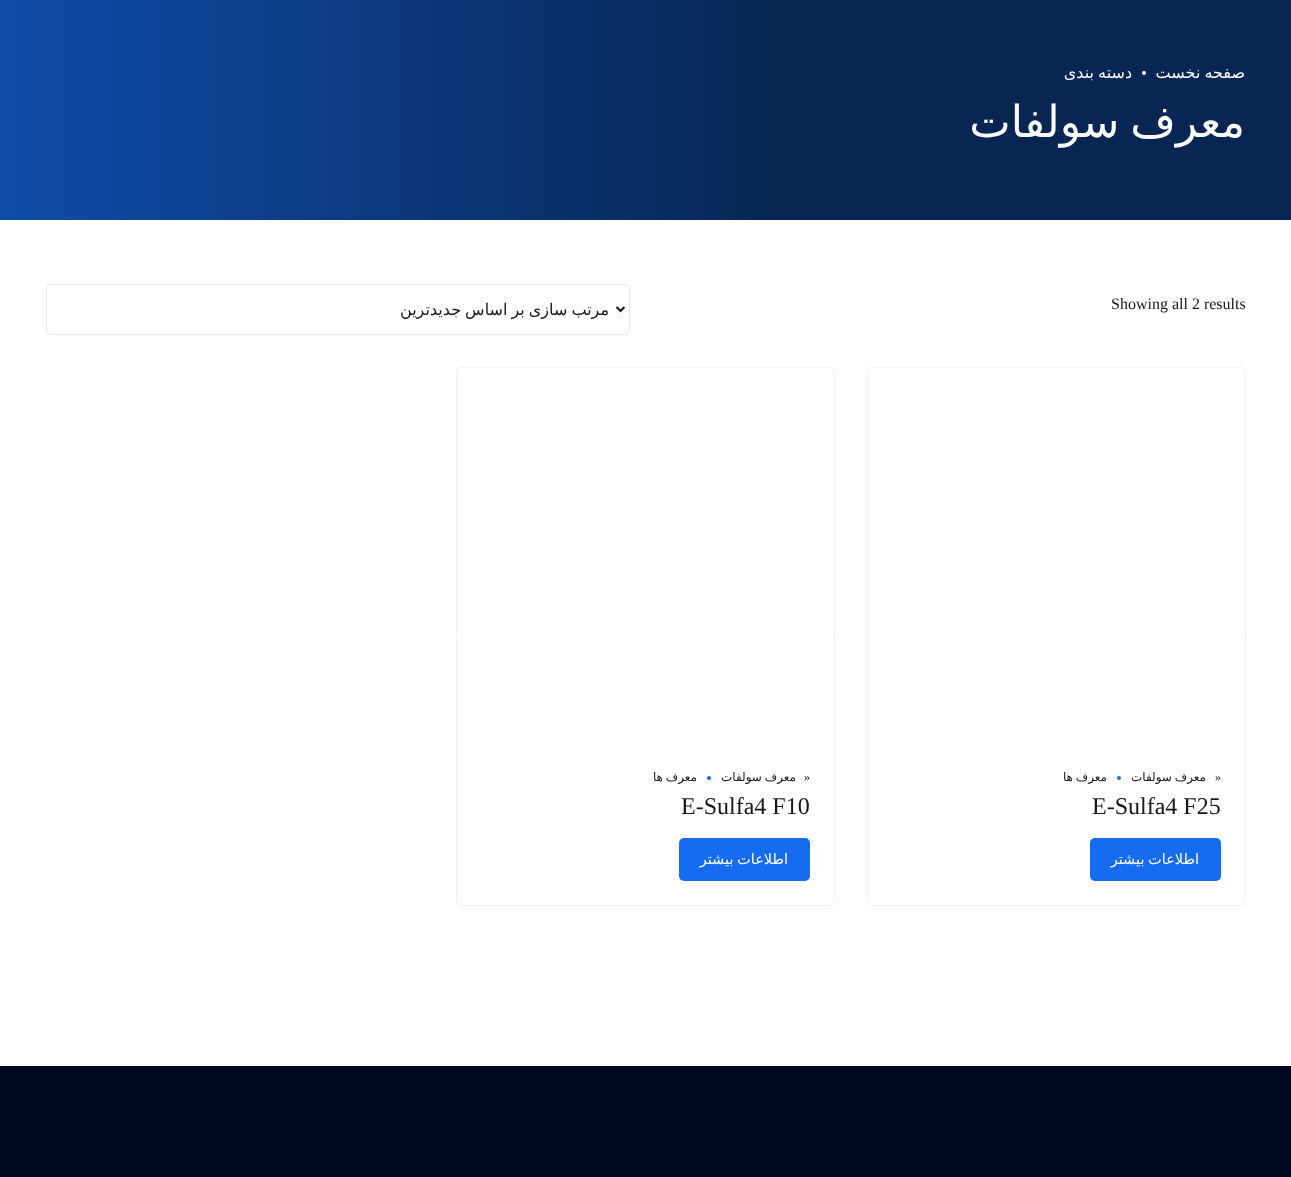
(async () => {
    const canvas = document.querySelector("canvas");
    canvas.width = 1291;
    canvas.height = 1177;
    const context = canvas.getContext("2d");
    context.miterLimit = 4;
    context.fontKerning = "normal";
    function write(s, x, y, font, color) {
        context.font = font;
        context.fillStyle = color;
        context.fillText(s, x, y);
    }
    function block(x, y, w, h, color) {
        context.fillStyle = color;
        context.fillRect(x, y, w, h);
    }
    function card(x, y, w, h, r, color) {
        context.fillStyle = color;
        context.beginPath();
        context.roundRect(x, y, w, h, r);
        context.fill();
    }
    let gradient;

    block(0, 0, 1291, 1177, "rgb(255, 255, 255)");
    gradient = context.createLinearGradient(1291, 110, 0, 110);
    gradient.addColorStop(0, "rgb(7, 38, 84)");
    gradient.addColorStop(0.4, "rgb(7, 38, 84)");
    gradient.addColorStop(1, "rgb(15, 76, 168)");
    context.fillStyle = gradient;
    context.fillRect(0, 0, 1291, 220);
    context.wordSpacing = "-1px";
    context.direction = "rtl";
    write("صفحه نخست", 1245, 78, "16px DejaVu Sans", "rgb(255, 255, 255)");
    context.beginPath();
    context.arc(1144, 73, 2, 0, Math.PI * 2);
    context.fill();
    write("دسته بندی", 1132, 78, "16px DejaVu Sans", "rgb(255, 255, 255)");
    context.wordSpacing = "-3px";
    write("معرف سولفات", 1245, 137, "44px DejaVu Sans", "rgb(255, 255, 255)");
    context.wordSpacing = "0px";
    context.direction = "ltr";
    write("Showing all 2 results", 1111, 309, "16px Liberation Serif", "rgb(24, 24, 24)");
    context.beginPath();
    context.roundRect(46.5, 284.5, 583, 50, 4.5);
    context.strokeStyle = "rgb(230, 230, 230)";
    context.stroke();
    context.beginPath();
    context.moveTo(616.5, 307);
    context.lineTo(620.5, 311);
    context.lineTo(624.5, 307);
    context.strokeStyle = "rgb(24, 24, 24)";
    context.lineWidth = 2;
    context.stroke();
    context.wordSpacing = "-1px";
    context.direction = "rtl";
    write("مرتب سازی بر اساس جدیدترین", 609, 315, "16px DejaVu Sans", "rgb(24, 24, 24)");
    context.beginPath();
    context.roundRect(867.5, 367.5, 378, 538, 4.5);
    context.strokeStyle = "rgb(242, 242, 242)";
    context.lineWidth = 1;
    context.stroke();
    context.wordSpacing = "0px";
    context.direction = "ltr";
    write("»", 1215, 781, "12px Liberation Serif", "rgb(24, 24, 24)");
    context.wordSpacing = "-1px";
    context.direction = "rtl";
    write("معرف سولفات", 1206, 781, "12px DejaVu Sans", "rgb(24, 24, 24)");
    context.fillStyle = "rgb(21, 108, 240)";
    context.beginPath();
    context.arc(1119, 778, 2, 0, Math.PI * 2);
    context.fill();
    write("معرف ها", 1107, 781, "12px DejaVu Sans", "rgb(24, 24, 24)");
    context.wordSpacing = "0px";
    context.direction = "ltr";
    write("E-Sulfa4 F25", 1092, 814, "24px Liberation Serif", "rgb(24, 24, 24)");
    card(1090, 838, 131, 43, 5, "rgb(21, 108, 240)");
    context.wordSpacing = "-1px";
    context.direction = "rtl";
    write("اطلاعات بیشتر", 1199, 864, "14.5px DejaVu Sans", "rgb(255, 255, 255)");
    context.beginPath();
    context.roundRect(456.5, 367.5, 378, 538, 4.5);
    context.stroke();
    context.wordSpacing = "0px";
    context.direction = "ltr";
    write("»", 804, 781, "12px Liberation Serif", "rgb(24, 24, 24)");
    context.wordSpacing = "-1px";
    context.direction = "rtl";
    write("معرف سولفات", 796, 781, "12px DejaVu Sans", "rgb(24, 24, 24)");
    context.fillStyle = "rgb(21, 108, 240)";
    context.beginPath();
    context.arc(709, 778, 2, 0, Math.PI * 2);
    context.fill();
    write("معرف ها", 697, 781, "12px DejaVu Sans", "rgb(24, 24, 24)");
    context.wordSpacing = "0px";
    context.direction = "ltr";
    write("E-Sulfa4 F10", 681, 814, "24px Liberation Serif", "rgb(24, 24, 24)");
    card(679, 838, 131, 43, 5, "rgb(21, 108, 240)");
    context.wordSpacing = "-1px";
    context.direction = "rtl";
    write("اطلاعات بیشتر", 788, 864, "14.5px DejaVu Sans", "rgb(255, 255, 255)");
    block(0, 1066, 1291, 111, "rgb(0, 8, 33)");
})();
